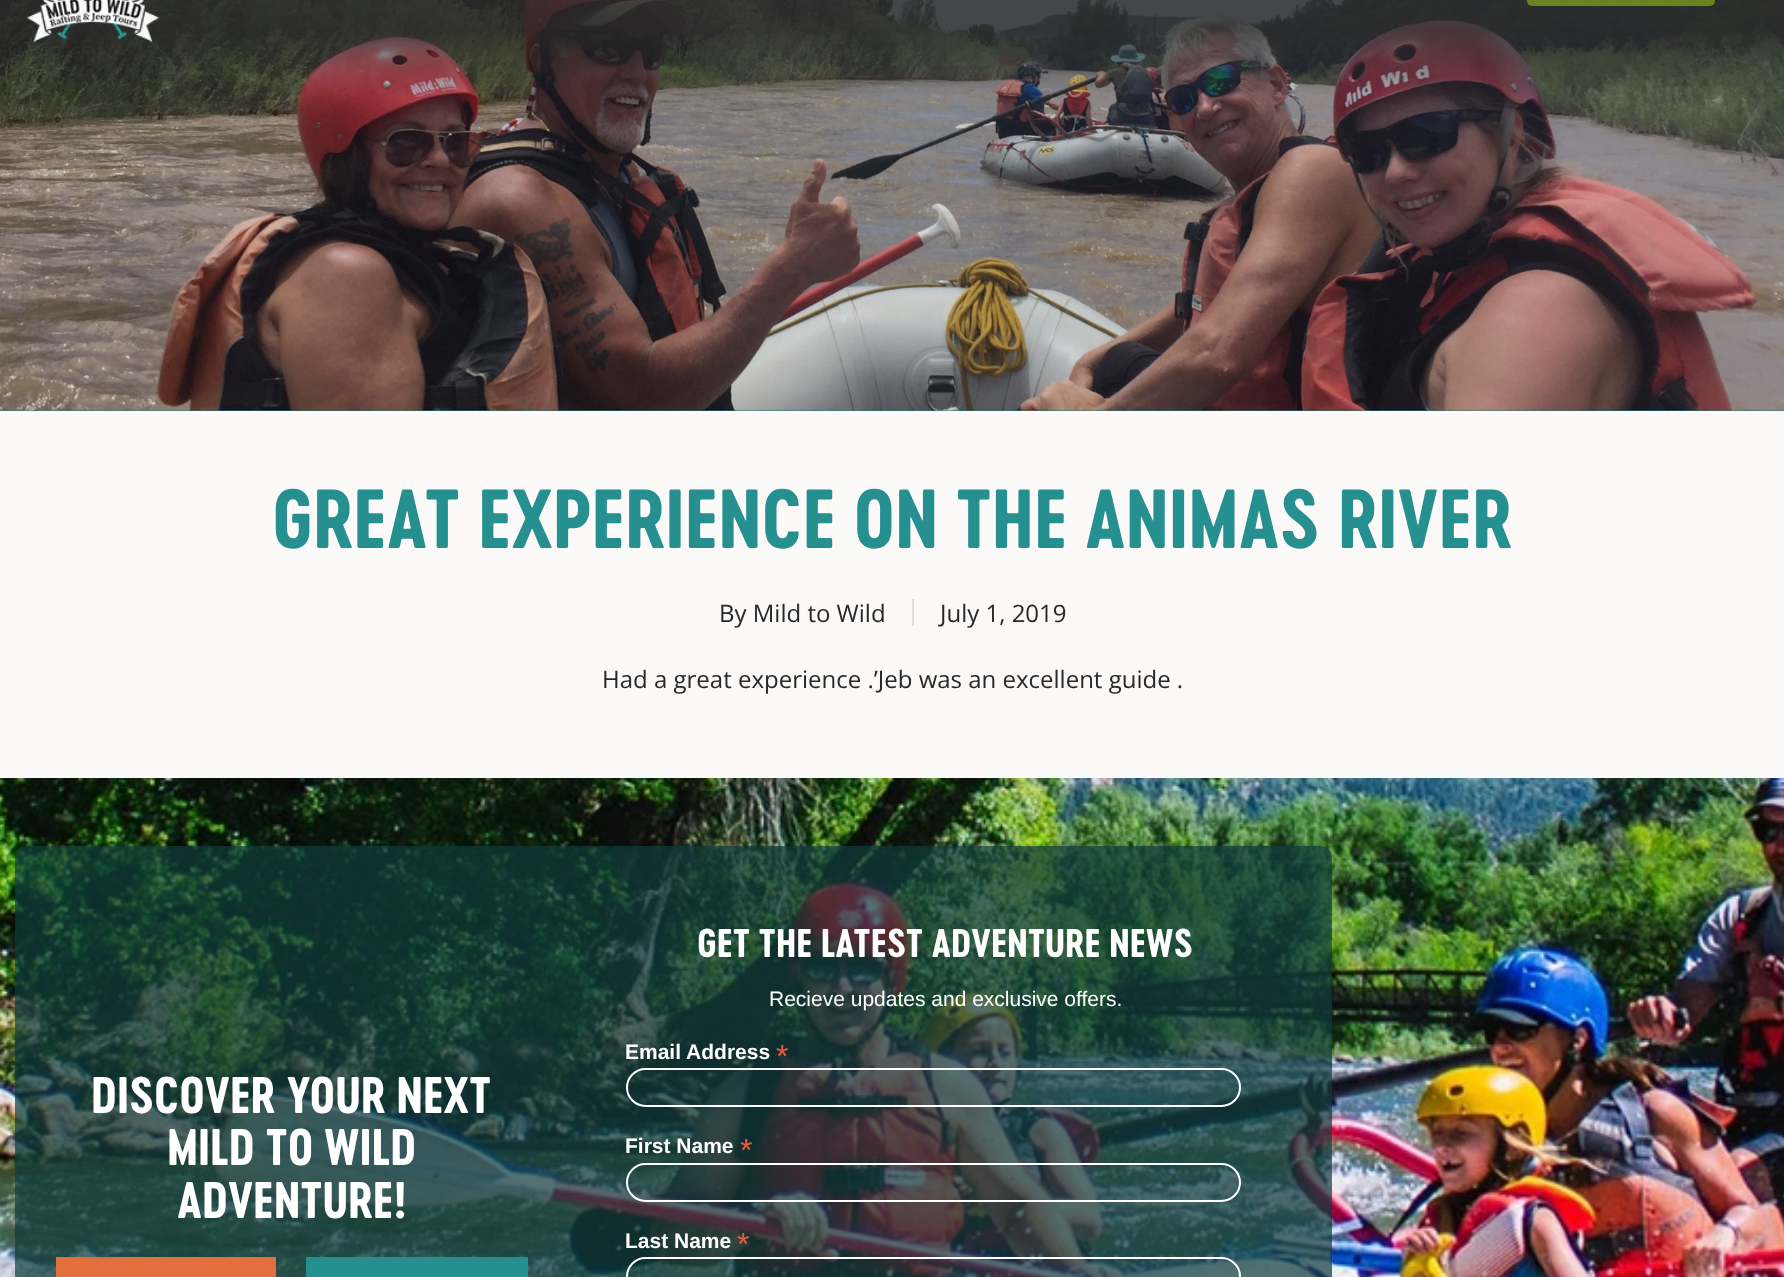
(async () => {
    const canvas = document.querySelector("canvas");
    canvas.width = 1784;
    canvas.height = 1277;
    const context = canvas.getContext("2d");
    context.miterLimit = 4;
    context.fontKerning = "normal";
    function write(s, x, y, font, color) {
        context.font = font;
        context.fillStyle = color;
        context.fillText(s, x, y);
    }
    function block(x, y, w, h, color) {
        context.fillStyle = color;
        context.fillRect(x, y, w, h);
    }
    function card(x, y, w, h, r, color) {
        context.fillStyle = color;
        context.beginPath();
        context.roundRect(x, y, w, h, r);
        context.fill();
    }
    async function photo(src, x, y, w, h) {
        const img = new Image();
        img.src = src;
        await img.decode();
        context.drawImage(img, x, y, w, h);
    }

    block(0, 0, 1784, 1277, "rgb(252, 250, 248)");
    block(0, 410, 1784, 1, "rgb(32, 122, 122)");
    await photo("media/2.png", 0, 0, 1784, 411);
    await photo("media/1.png", 26, 0, 134, 43);
    card(1527, -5, 188, 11, 5, "rgb(105, 131, 31)");
    write("GREAT EXPERIENCE ON THE ANIMAS RIVER", 272, 548, "bold 78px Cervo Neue", "rgb(38, 143, 144)");
    write("By Mild to Wild", 719, 622, "24px Open Sans", "rgb(40, 40, 40)");
    block(912, 599, 2, 27, "rgb(222, 222, 222)");
    write("July 1, 2019", 940, 622, "24px Open Sans", "rgb(40, 40, 40)");
    write("Had a great experience .’Jeb was an excellent guide .", 602, 688, "24px Open Sans", "rgb(40, 40, 40)");
    await photo("media/3.png", 0, 778, 1784, 499);
    card(15, 846, 1317, 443, 12, "rgba(15, 61, 61, 0.71)");
    write("DISCOVER YOUR NEXT", 91, 1113, "bold 48px Cervo Neue", "rgb(255, 255, 255)");
    write("MILD TO WILD", 167, 1165, "bold 48px Cervo Neue", "rgb(255, 255, 255)");
    write("ADVENTURE!", 177, 1218, "bold 48px Cervo Neue", "rgb(255, 255, 255)");
    block(56, 1257, 220, 20, "rgb(226, 111, 62)");
    block(306, 1257, 222, 20, "rgb(38, 143, 144)");
    write("GET THE LATEST ADVENTURE NEWS", 697, 957, "bold 37.5px Cervo Neue", "rgb(255, 255, 255)");
    write("Recieve updates and exclusive offers.", 769, 1006, "21px Liberation Sans", "rgb(255, 255, 255)");
    write("Email Address", 625, 1059, "bold 21px Liberation Sans", "rgb(255, 255, 255)");
    write("*", 776, 1067, "32px Liberation Sans", "rgb(232, 92, 65)");
    context.beginPath();
    context.roundRect(627, 1069, 613, 37, 18.5);
    context.strokeStyle = "rgb(255, 255, 255)";
    context.lineWidth = 2;
    context.stroke();
    write("First Name", 625, 1153, "bold 21px Liberation Sans", "rgb(255, 255, 255)");
    write("*", 740, 1161, "32px Liberation Sans", "rgb(232, 92, 65)");
    context.beginPath();
    context.roundRect(627, 1164, 613, 37, 18.5);
    context.stroke();
    write("Last Name", 625, 1248, "bold 21px Liberation Sans", "rgb(255, 255, 255)");
    write("*", 737, 1255, "32px Liberation Sans", "rgb(232, 92, 65)");
    context.beginPath();
    context.roundRect(627, 1258, 613, 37, 18.5);
    context.stroke();
})();
